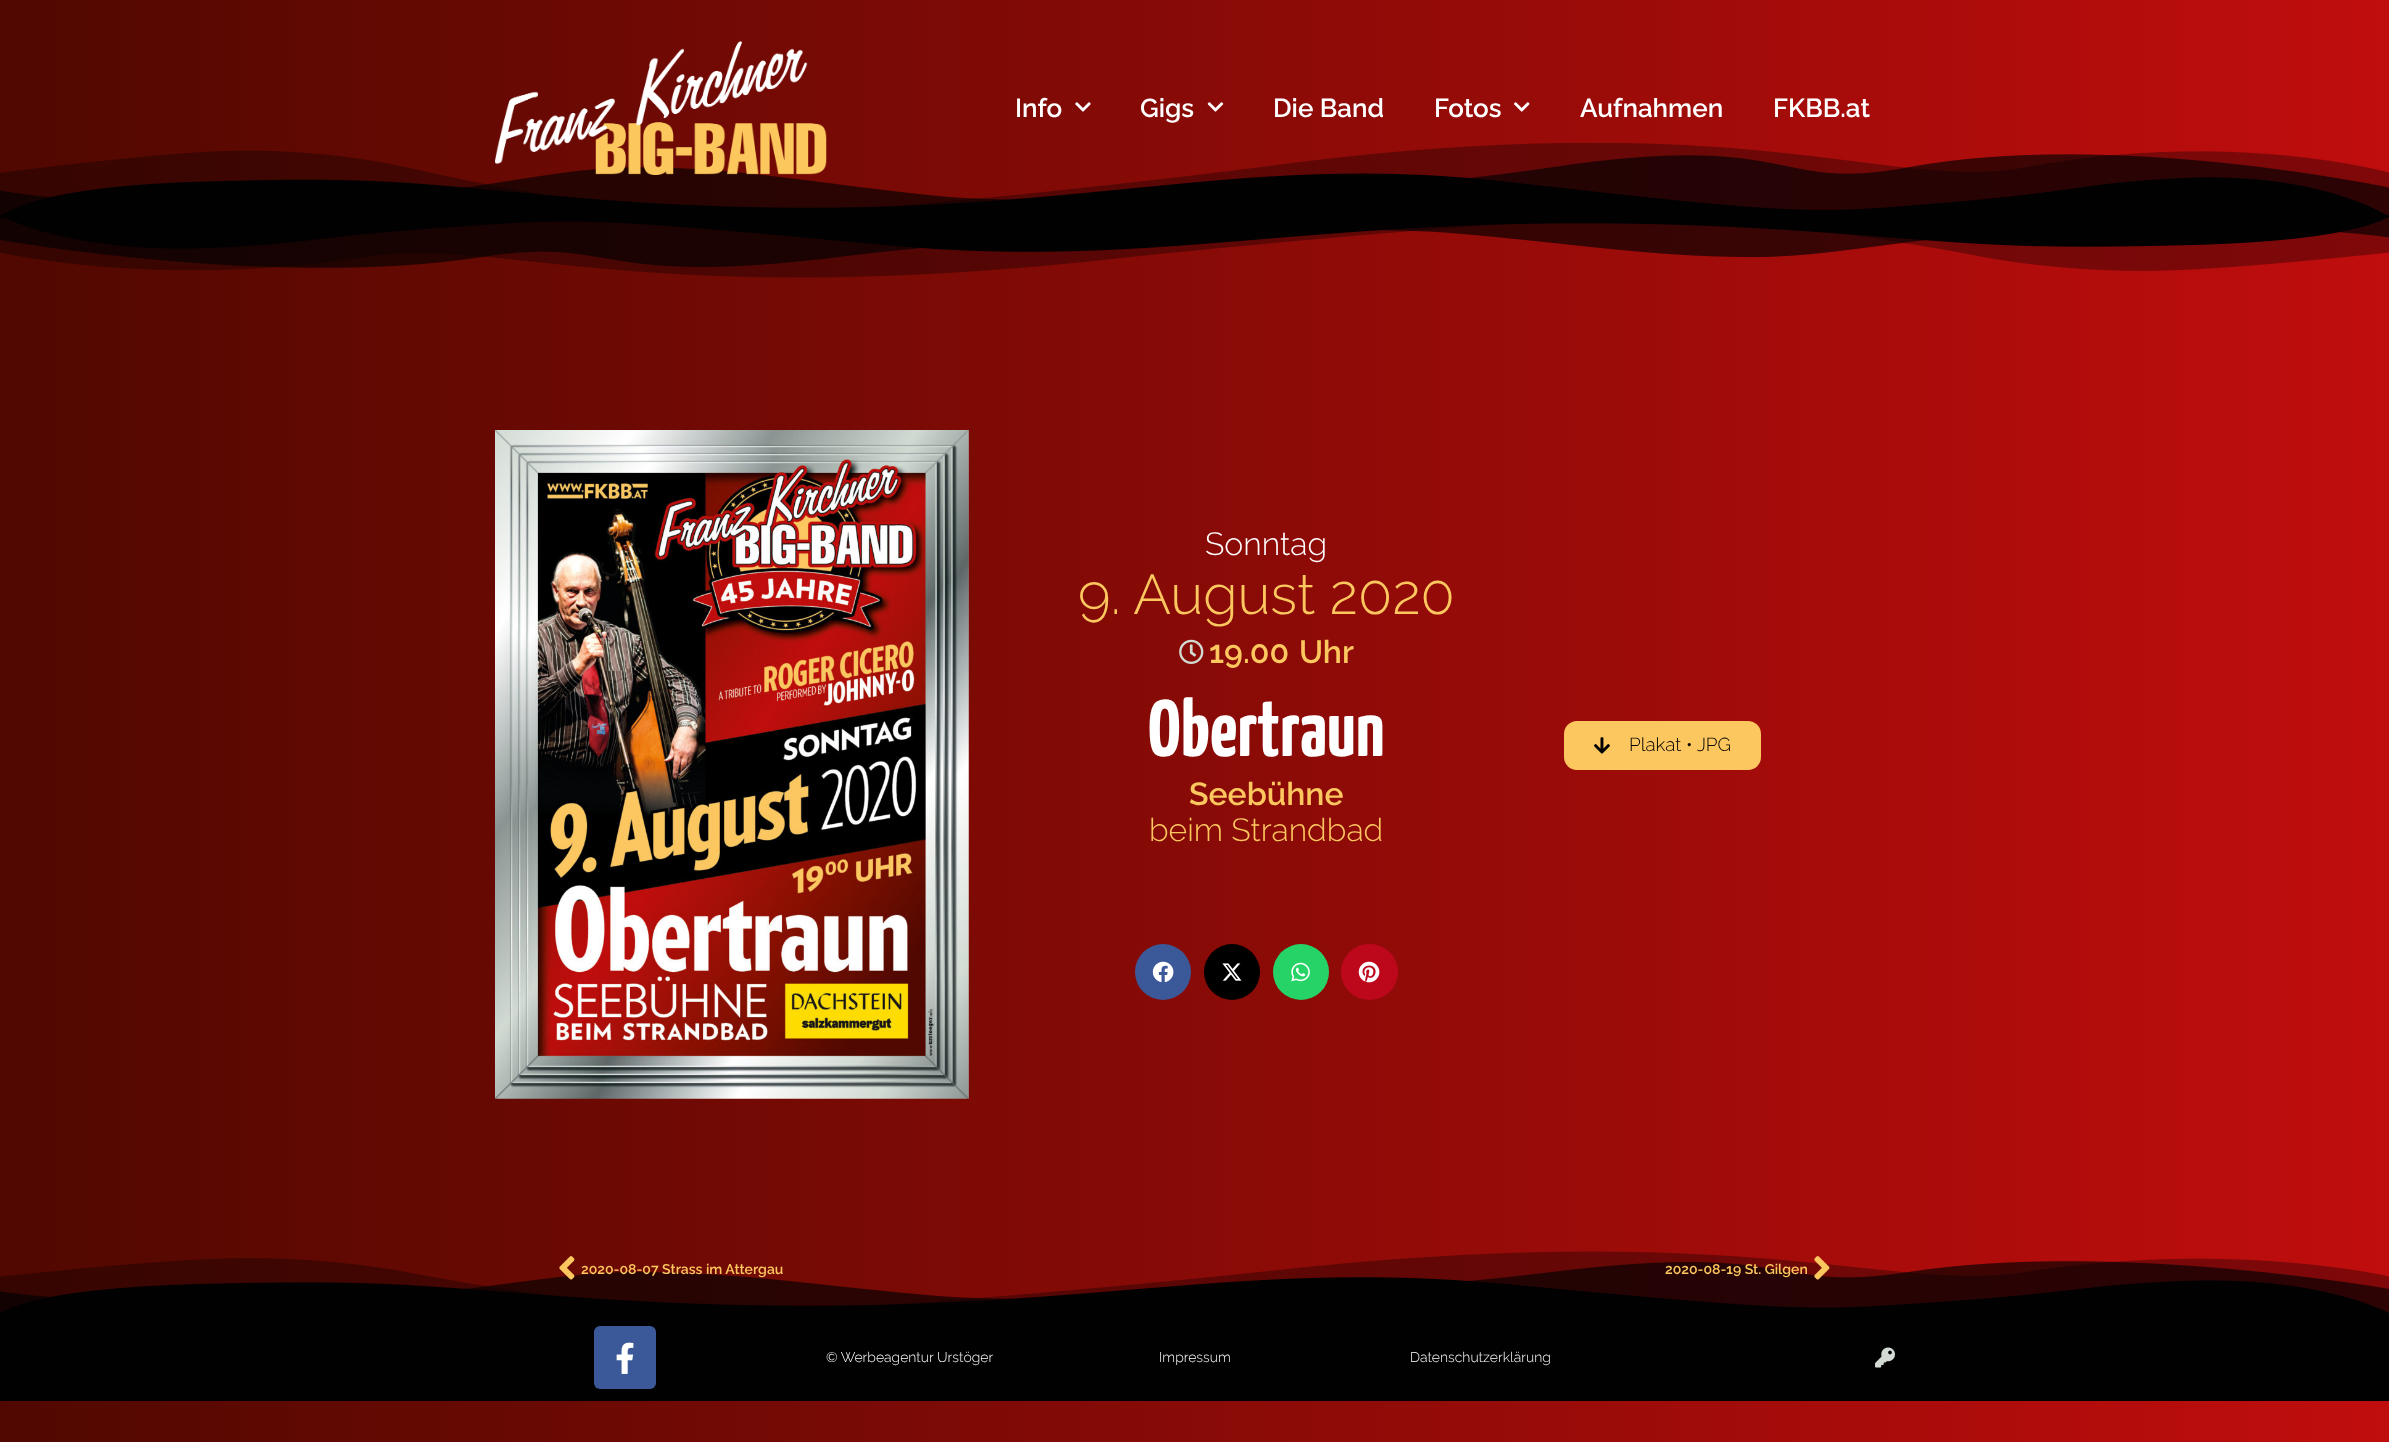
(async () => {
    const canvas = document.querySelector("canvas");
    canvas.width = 2389;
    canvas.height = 1442;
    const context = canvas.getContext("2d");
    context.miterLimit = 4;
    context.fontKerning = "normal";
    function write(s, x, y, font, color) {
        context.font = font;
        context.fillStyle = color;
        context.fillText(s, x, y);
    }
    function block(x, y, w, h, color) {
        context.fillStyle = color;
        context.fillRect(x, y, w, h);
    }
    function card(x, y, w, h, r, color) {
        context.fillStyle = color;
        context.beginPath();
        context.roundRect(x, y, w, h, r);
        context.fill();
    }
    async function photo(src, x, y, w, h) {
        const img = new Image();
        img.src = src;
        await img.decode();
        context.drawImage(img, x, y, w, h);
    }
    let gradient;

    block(0, 0, 2389, 1442, "rgb(255, 255, 255)");
    gradient = context.createLinearGradient(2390, 701, 0, 701);
    gradient.addColorStop(0, "rgb(192, 13, 13)");
    gradient.addColorStop(1, "rgb(80, 8, 0)");
    context.fillStyle = gradient;
    context.fillRect(0, 0, 2389, 1442);
    await photo("media/5.png", 0, 143, 2389, 75);
    await photo("media/1.png", 495, 41, 332, 134);
    write("Info", 1015, 117, "100 26px 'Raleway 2'", "rgb(255, 255, 255)");
    await photo("media/2.png", 1075, 102, 16, 10);
    write("Gigs", 1140, 117, "100 26px 'Raleway 2'", "rgb(255, 255, 255)");
    await photo("media/3.png", 1207, 102, 17, 10);
    write("Die Band", 1273, 117, "100 26px 'Raleway 2'", "rgb(255, 255, 255)");
    write("Fotos", 1434, 117, "100 26px 'Raleway 2'", "rgb(255, 255, 255)");
    await photo("media/4.png", 1514, 102, 16, 10);
    write("Aufnahmen", 1580, 117, "100 26px 'Raleway 2'", "rgb(255, 255, 255)");
    write("FKBB.at", 1773, 117, "100 26px 'Raleway 2'", "rgb(255, 255, 255)");
    await photo("media/6.png", 0, 215, 2389, 63);
    await photo("media/7.png", 495, 430, 474, 669);
    write("Sonntag", 1205, 555, "100 32px Raleway", "rgb(255, 255, 255)");
    write("9. August 2020", 1078, 614, "100 56px Raleway", "rgb(253, 199, 95)");
    await photo("media/8.png", 1179, 639, 25, 25);
    write("19.00", 1209, 663, "100 32px 'Raleway 2'", "rgb(253, 199, 95)");
    write("Uhr", 1299, 663, "100 32px 'Raleway 2'", "rgb(253, 199, 95)");
    write("Obertraun", 1148, 756, "200 80px Yanone Kaffeesatz", "rgb(255, 255, 255)");
    write("Seebühne", 1189, 805, "100 32px 'Raleway 2'", "rgb(253, 199, 95)");
    write("beim Strandbad", 1149, 841, "100 32px Raleway", "rgb(253, 199, 95)");
    context.fillStyle = "rgb(59, 89, 152)";
    context.beginPath();
    context.arc(1163, 972, 28, 0, Math.PI * 2);
    context.fill();
    await photo("media/9.png", 1152, 961, 22, 22);
    context.fillStyle = "rgb(0, 0, 0)";
    context.beginPath();
    context.arc(1232, 972, 28, 0, Math.PI * 2);
    context.fill();
    await photo("media/10.png", 1222, 963, 20, 18);
    context.fillStyle = "rgb(37, 211, 102)";
    context.beginPath();
    context.arc(1301, 972, 28, 0, Math.PI * 2);
    context.fill();
    await photo("media/11.png", 1291, 962, 19, 20);
    card(1341, 944, 57, 56, 28, "rgb(189, 8, 28)");
    await photo("media/12.png", 1358, 961, 22, 22);
    card(1564, 721, 197, 49, 13, "rgb(253, 199, 95)");
    await photo("media/13.png", 1594, 737, 16, 17);
    write("Plakat • JPG", 1629, 751, "100 18.75px Raleway", "rgb(1, 1, 2)");
    await photo("media/14.png", 0, 1251, 2389, 63);
    await photo("media/15.png", 559, 1256, 16, 24);
    write("2020-08-07 Strass im Attergau", 581, 1274, "100 14px 'Raleway 2'", "rgb(253, 199, 95)");
    write("2020-08-19 St. Gilgen", 1665, 1274, "100 14px 'Raleway 2'", "rgb(253, 199, 95)");
    await photo("media/16.png", 1814, 1256, 16, 24);
    block(0, 1314, 2389, 87, "rgb(1, 1, 2)");
    card(594, 1326, 62, 63, 6, "rgb(59, 89, 152)");
    await photo("media/17.png", 616, 1342, 18, 32);
    write("© Werbeagentur Urstöger", 826, 1362, "100 14px Raleway", "rgb(255, 255, 255)");
    write("Impressum", 1159, 1362, "100 14px Raleway", "rgb(255, 255, 255)");
    write("Datenschutzerklärung", 1410, 1362, "100 14px Raleway", "rgb(255, 255, 255)");
    await photo("media/18.png", 1875, 1347, 20, 21);
})();
